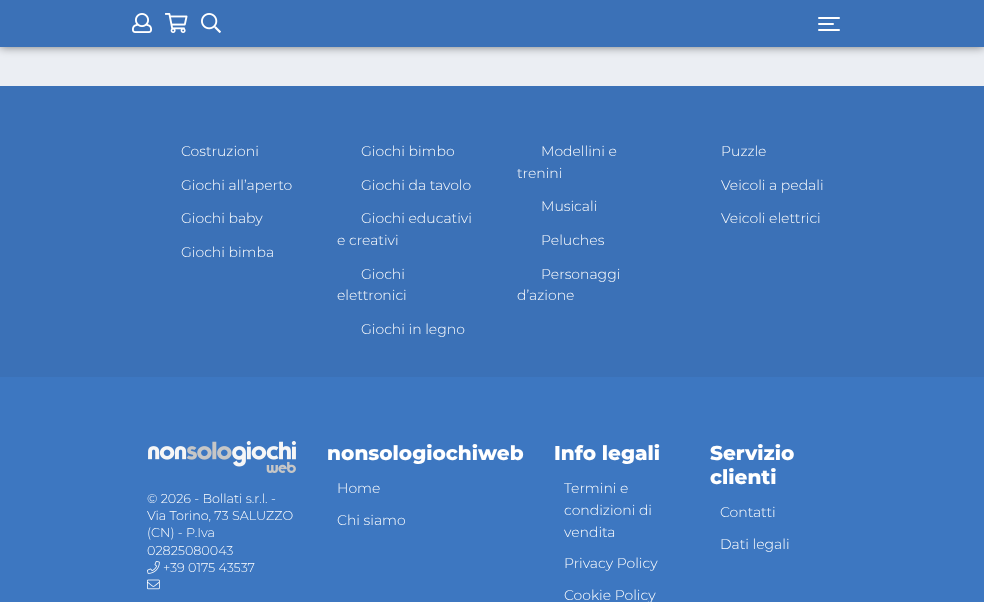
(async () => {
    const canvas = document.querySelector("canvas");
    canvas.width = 984;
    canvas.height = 602;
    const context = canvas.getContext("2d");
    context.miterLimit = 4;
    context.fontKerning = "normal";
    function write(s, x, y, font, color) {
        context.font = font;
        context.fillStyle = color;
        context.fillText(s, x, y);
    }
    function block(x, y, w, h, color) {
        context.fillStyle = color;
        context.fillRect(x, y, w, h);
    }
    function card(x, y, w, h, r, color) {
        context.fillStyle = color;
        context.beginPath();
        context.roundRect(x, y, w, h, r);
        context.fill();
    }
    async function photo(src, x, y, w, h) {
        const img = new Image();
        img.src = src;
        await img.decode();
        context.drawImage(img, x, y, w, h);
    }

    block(0, 0, 984, 602, "rgb(235, 238, 243)");
    context.fillStyle = "rgba(0, 0, 0, 0.5)";
    context.filter = "blur(5px)";
    context.beginPath();
    context.rect(0, 0, 984, 47);
    context.fill();
    context.filter = "none";
    block(0, 0, 984, 47, "rgb(59, 113, 183)");
    await photo("media/1.png", 132, 13, 20, 20);
    await photo("media/2.png", 165, 13, 23, 20);
    await photo("media/3.png", 201, 13, 20, 20);
    card(818, 17, 22, 2, 1, "rgb(255, 255, 255)");
    card(818, 23, 16, 2, 1, "rgb(255, 255, 255)");
    card(818, 29, 22, 2, 1, "rgb(255, 255, 255)");
    block(0, 86, 984, 291, "rgb(59, 113, 183)");
    write("Costruzioni", 181, 156, "300 14px Montserrat", "rgb(255, 255, 255)");
    write("Giochi all’aperto", 181, 190, "300 14px Montserrat", "rgb(255, 255, 255)");
    write("Giochi baby", 181, 223, "300 14px Montserrat", "rgb(255, 255, 255)");
    write("Giochi bimba", 181, 257, "300 14px Montserrat", "rgb(255, 255, 255)");
    write("Giochi bimbo", 361, 156, "300 14px Montserrat", "rgb(255, 255, 255)");
    write("Giochi da tavolo", 361, 190, "300 14px Montserrat", "rgb(255, 255, 255)");
    write("Giochi educativi", 361, 223, "300 14px Montserrat", "rgb(255, 255, 255)");
    write("e creativi", 337, 245, "300 14px Montserrat", "rgb(255, 255, 255)");
    write("Giochi", 361, 279, "300 14px Montserrat", "rgb(255, 255, 255)");
    write("elettronici", 337, 300, "300 14px Montserrat", "rgb(255, 255, 255)");
    write("Giochi in legno", 361, 334, "300 14px Montserrat", "rgb(255, 255, 255)");
    write("Modellini e", 541, 156, "300 14px Montserrat", "rgb(255, 255, 255)");
    write("trenini", 517, 178, "300 14px Montserrat", "rgb(255, 255, 255)");
    write("Musicali", 541, 211, "300 14px Montserrat", "rgb(255, 255, 255)");
    write("Peluches", 541, 245, "300 14px Montserrat", "rgb(255, 255, 255)");
    write("Personaggi", 541, 279, "300 14px Montserrat", "rgb(255, 255, 255)");
    write("d’azione", 517, 300, "300 14px Montserrat", "rgb(255, 255, 255)");
    write("Puzzle", 721, 156, "300 14px Montserrat", "rgb(255, 255, 255)");
    write("Veicoli a pedali", 721, 190, "300 14px Montserrat", "rgb(255, 255, 255)");
    write("Veicoli elettrici", 721, 223, "300 14px Montserrat", "rgb(255, 255, 255)");
    block(0, 377, 984, 225, "rgb(61, 119, 193)");
    await photo("media/4.png", 148, 441, 148, 32);
    write("© 2026 - Bollati s.r.l. -", 147, 503, "300 12.75px Montserrat", "rgb(255, 255, 255)");
    write("Via Torino, 73 SALUZZO", 147, 520, "300 12.75px Montserrat", "rgb(255, 255, 255)");
    write("(CN) - P.Iva", 147, 537, "300 12.75px Montserrat", "rgb(255, 255, 255)");
    write("02825080043", 147, 555, "300 12.75px Montserrat", "rgb(255, 255, 255)");
    await photo("media/5.png", 147, 561, 13, 13);
    write("+39 0175 43537", 163, 572, "300 12.75px Montserrat", "rgb(255, 255, 255)");
    await photo("media/6.png", 147, 579, 13, 11);
    write("nonsologiochiweb", 327, 460, "800 20px Montserrat", "rgb(255, 255, 255)");
    write("Home", 337, 493, "300 14px Montserrat", "rgb(255, 255, 255)");
    write("Chi siamo", 337, 525, "300 14px Montserrat", "rgb(255, 255, 255)");
    write("Info legali", 554, 460, "800 20px Montserrat", "rgb(255, 255, 255)");
    write("Termini e", 564, 493, "300 14px Montserrat", "rgb(255, 255, 255)");
    write("condizioni di", 564, 515, "300 14px Montserrat", "rgb(255, 255, 255)");
    write("vendita", 564, 537, "300 14px Montserrat", "rgb(255, 255, 255)");
    write("Privacy Policy", 564, 568, "300 14px Montserrat", "rgb(255, 255, 255)");
    write("Cookie Policy", 564, 600, "300 14px Montserrat", "rgb(255, 255, 255)");
    write("Servizio", 710, 460, "800 20px Montserrat", "rgb(255, 255, 255)");
    write("clienti", 710, 484, "800 20px Montserrat", "rgb(255, 255, 255)");
    write("Contatti", 720, 517, "300 14px Montserrat", "rgb(255, 255, 255)");
    write("Dati legali", 720, 549, "300 14px Montserrat", "rgb(255, 255, 255)");
})();
